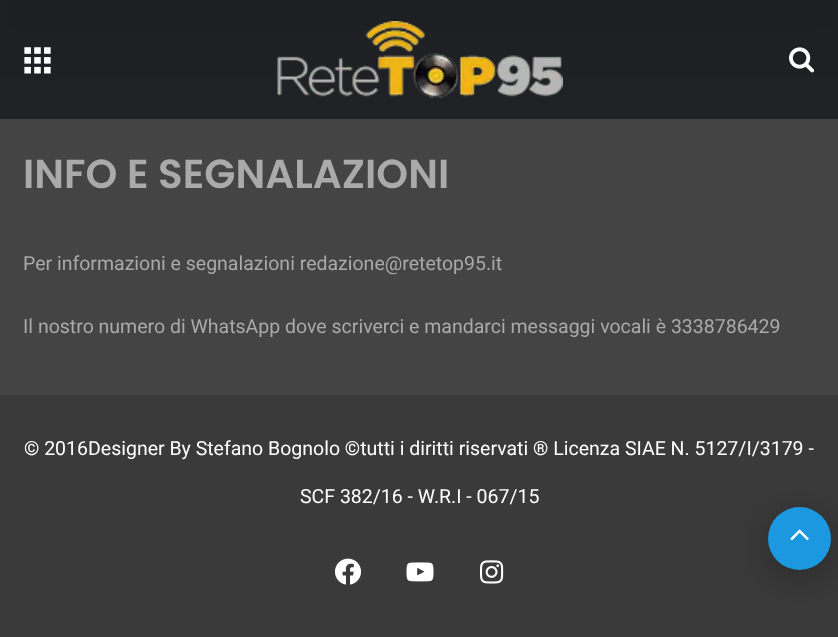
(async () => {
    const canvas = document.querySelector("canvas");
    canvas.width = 838;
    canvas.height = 637;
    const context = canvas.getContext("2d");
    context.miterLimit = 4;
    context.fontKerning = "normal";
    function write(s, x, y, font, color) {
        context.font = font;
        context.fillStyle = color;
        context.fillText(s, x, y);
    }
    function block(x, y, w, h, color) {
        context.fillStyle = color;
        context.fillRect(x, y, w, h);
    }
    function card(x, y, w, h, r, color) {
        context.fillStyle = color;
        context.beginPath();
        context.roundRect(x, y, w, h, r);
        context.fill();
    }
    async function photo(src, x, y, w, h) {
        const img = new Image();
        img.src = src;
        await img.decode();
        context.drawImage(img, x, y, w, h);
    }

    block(0, 0, 838, 637, "rgb(39, 41, 45)");
    card(0, -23, 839, 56, 23, "rgb(31, 32, 36)");
    context.beginPath();
    context.roundRect(1, -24, 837, 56, 22);
    context.strokeStyle = "rgba(255, 255, 255, 0.1)";
    context.lineWidth = 2;
    context.stroke();
    block(0, 78, 838, 317, "rgb(68, 68, 68)");
    block(0, 0, 838, 119, "rgba(31, 32, 36, 0.95)");
    await photo("media/1.png", 24, 47, 27, 27);
    await photo("media/2.png", 277, 21, 286, 77);
    await photo("media/3.png", 789, 47, 26, 26);
    write("INFO E SEGNALAZIONI", 23, 188, "600 40.5px Poppins", "rgb(170, 170, 170)");
    write("Per informazioni e segnalazioni redazione@retetop95.it", 23, 270, "19.5px Roboto", "rgb(170, 170, 170)");
    write("Il nostro numero di WhatsApp dove scriverci e mandarci messaggi vocali è 3338786429", 23, 333, "19.5px Roboto", "rgb(170, 170, 170)");
    block(0, 395, 838, 242, "rgb(58, 58, 58)");
    write("© 2016Designer By Stefano Bognolo ©tutti i diritti riservati ® Licenza SIAE N. 5127/I/3179 -", 24, 455, "19.5px Roboto", "rgb(255, 255, 255)");
    write("SCF 382/16 - W.R.I - 067/15", 300, 503, "19.5px Roboto", "rgb(255, 255, 255)");
    await photo("media/4.png", 334, 558, 28, 27);
    await photo("media/5.png", 406, 562, 28, 20);
    await photo("media/6.png", 480, 560, 24, 24);
    context.fillStyle = "rgba(0, 0, 0, 0.3)";
    context.filter = "blur(19px)";
    context.beginPath();
    context.roundRect(768, 515, 63, 63, 31.5);
    context.fill();
    context.filter = "none";
    context.fillStyle = "rgb(27, 152, 224)";
    context.beginPath();
    context.arc(799.5, 538.5, 31.5, 0, Math.PI * 2);
    context.fill();
    await photo("media/7.png", 790, 529, 19, 12);
})();
